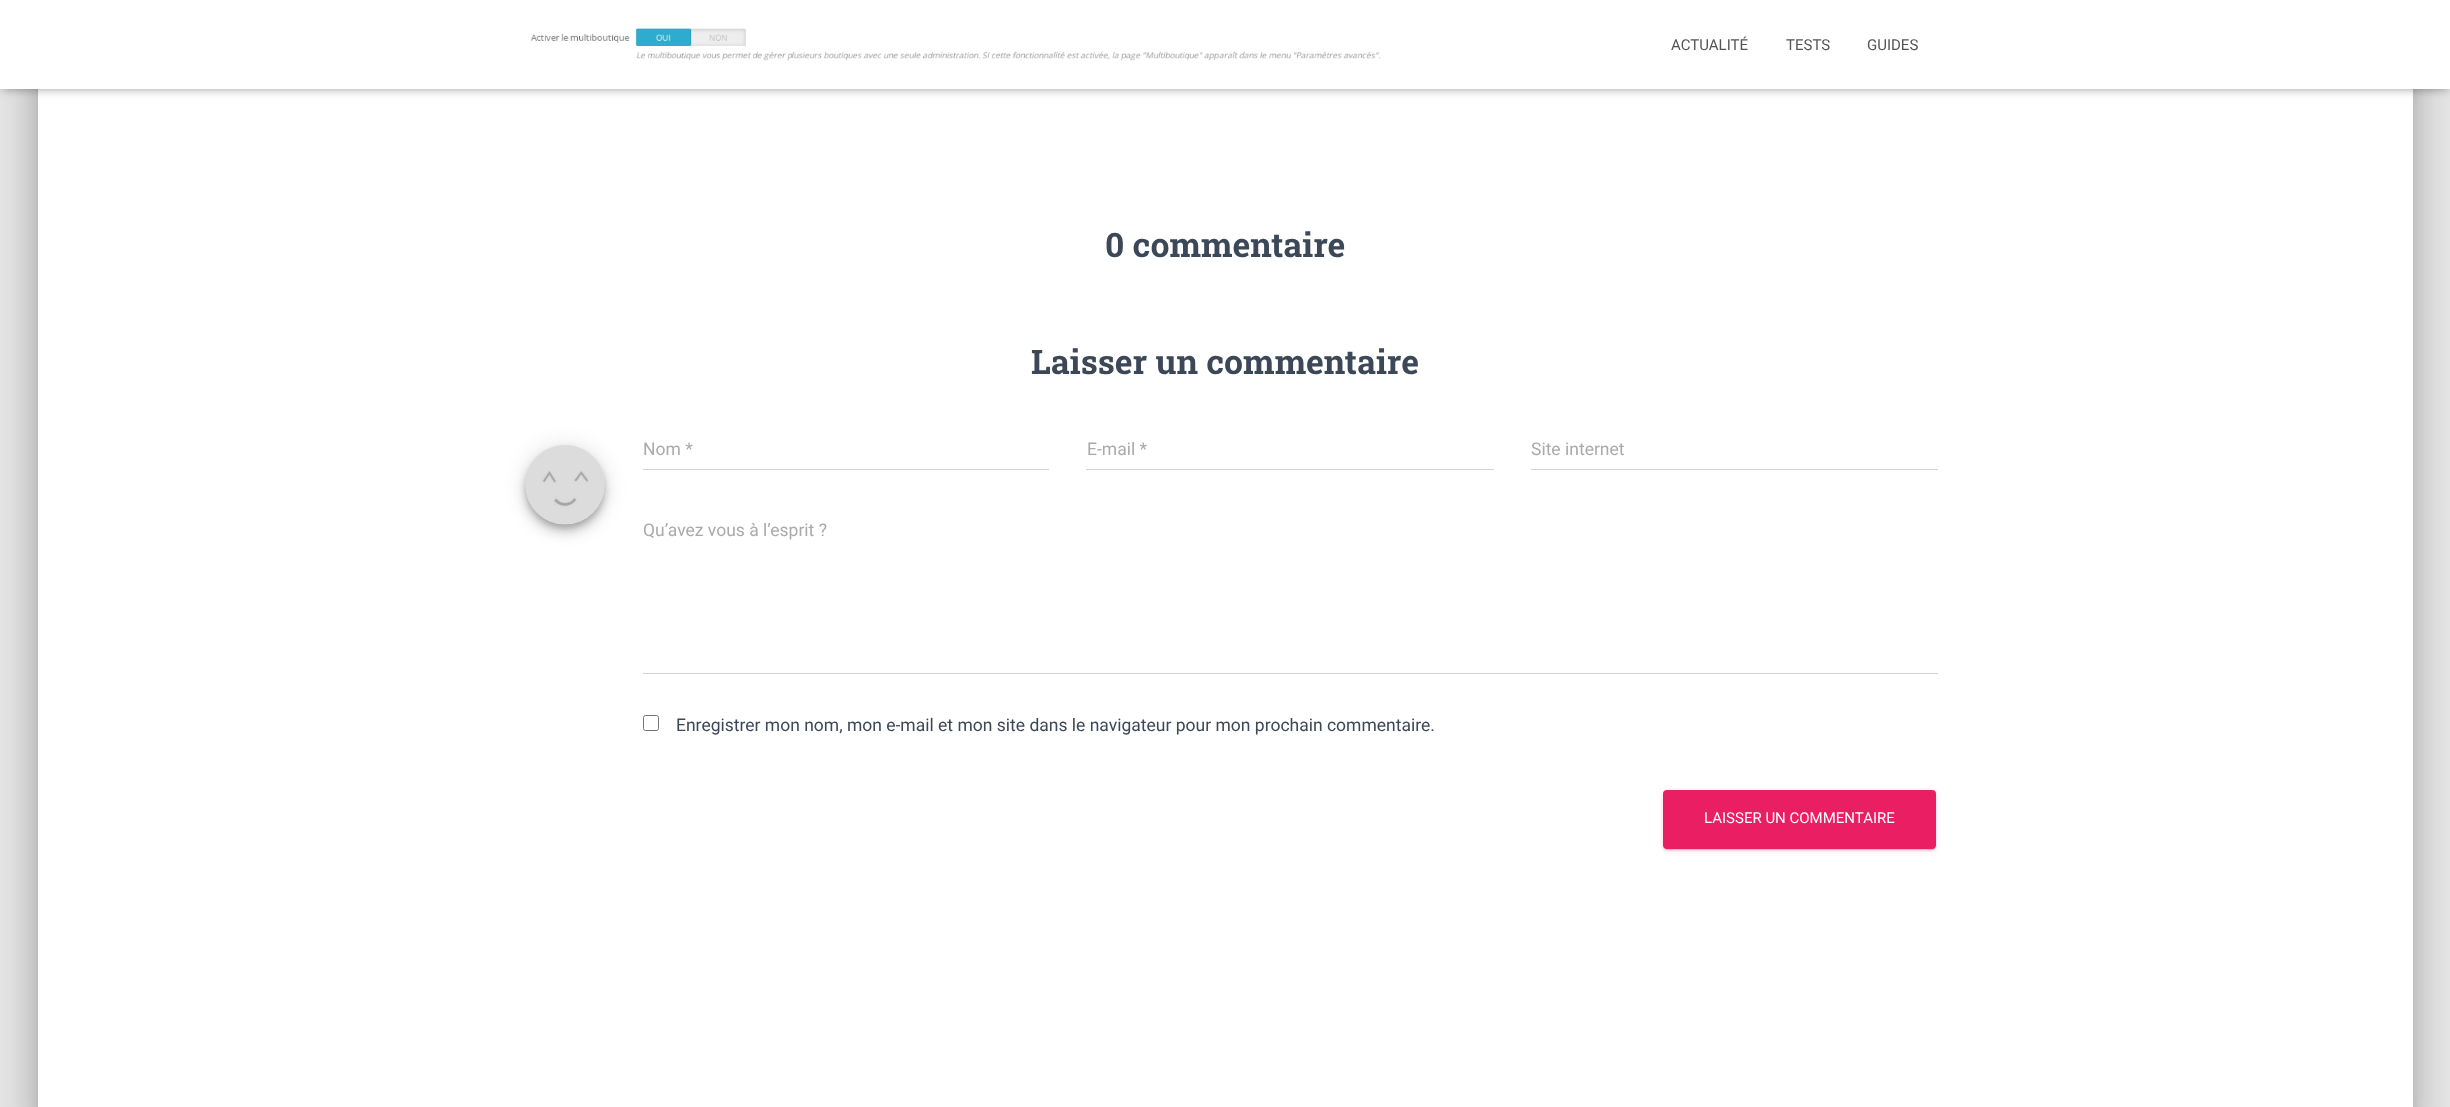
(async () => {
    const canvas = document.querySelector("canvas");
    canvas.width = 2450;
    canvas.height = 1107;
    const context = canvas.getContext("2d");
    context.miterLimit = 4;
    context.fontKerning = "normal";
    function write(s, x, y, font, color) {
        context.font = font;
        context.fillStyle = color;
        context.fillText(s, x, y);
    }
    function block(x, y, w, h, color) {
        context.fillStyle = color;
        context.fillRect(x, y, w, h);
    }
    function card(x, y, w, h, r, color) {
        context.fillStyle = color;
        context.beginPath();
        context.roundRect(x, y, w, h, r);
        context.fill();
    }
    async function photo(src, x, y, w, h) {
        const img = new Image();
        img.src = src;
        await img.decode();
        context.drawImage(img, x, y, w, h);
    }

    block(0, 0, 2450, 1107, "rgb(229, 229, 229)");
    context.fillStyle = "rgba(0, 0, 0, 0.2)";
    context.filter = "blur(6px)";
    context.beginPath();
    context.roundRect(44, -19, 2362, 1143, 1);
    context.fill();
    context.filter = "none";
    context.fillStyle = "rgba(0, 0, 0, 0.12)";
    context.filter = "blur(19px)";
    context.beginPath();
    context.roundRect(31, -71, 2388, 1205, 14);
    context.fill();
    context.filter = "none";
    context.fillStyle = "rgba(0, 0, 0, 0.14)";
    context.filter = "blur(15px)";
    context.beginPath();
    context.roundRect(35, -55, 2380, 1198, 10);
    context.fill();
    context.filter = "none";
    block(38, 89, 2375, 1018, "rgb(255, 255, 255)");
    context.fillStyle = "rgba(0, 0, 0, 0.1)";
    context.filter = "blur(3px)";
    context.beginPath();
    context.rect(3, 8, 2445, 83);
    context.fill();
    context.filter = "none";
    context.fillStyle = "rgba(0, 0, 0, 0.12)";
    context.filter = "blur(6px)";
    context.beginPath();
    context.rect(0, 1, 2450, 89);
    context.fill();
    context.filter = "none";
    context.fillStyle = "rgba(0, 0, 0, 0.42)";
    context.filter = "blur(6px)";
    context.beginPath();
    context.rect(8, 9, 2435, 74);
    context.fill();
    context.filter = "none";
    block(0, 0, 2450, 89, "rgb(255, 255, 255)");
    await photo("media/1.png", 530, 28, 851, 33);
    write("ACTUALITÉ", 1671, 50, "15px Roboto", "rgb(85, 85, 85)");
    write("TESTS", 1786, 50, "15px Roboto", "rgb(85, 85, 85)");
    write("GUIDES", 1867, 50, "15px Roboto", "rgb(85, 85, 85)");
    write("0 commentaire", 1105, 257, "bold 33.75px Roboto Slab", "rgb(60, 72, 88)");
    write("Laisser un commentaire", 1031, 374, "bold 33.75px Roboto Slab", "rgb(60, 72, 88)");
    context.fillStyle = "rgba(0, 0, 0, 0.2)";
    context.filter = "blur(3px)";
    context.beginPath();
    context.roundRect(526, 450, 78, 78, 39);
    context.fill();
    context.filter = "none";
    context.fillStyle = "rgba(0, 0, 0, 0.12)";
    context.filter = "blur(11px)";
    context.beginPath();
    context.roundRect(525, 446, 80, 80, 40);
    context.fill();
    context.filter = "none";
    context.fillStyle = "rgba(0, 0, 0, 0.14)";
    context.filter = "blur(6px)";
    context.beginPath();
    context.roundRect(525, 453, 80, 80, 40);
    context.fill();
    context.filter = "none";
    await photo("media/2.png", 525, 445, 80, 80);
    write("Nom *", 643, 455, "17.5px Roboto", "rgb(170, 170, 170)");
    block(643, 469, 406, 1, "rgb(210, 210, 210)");
    write("E-mail *", 1087, 455, "17.5px Roboto", "rgb(170, 170, 170)");
    block(1086, 469, 408, 1, "rgb(210, 210, 210)");
    write("Site internet", 1531, 455, "17.5px Roboto", "rgb(170, 170, 170)");
    block(1531, 469, 407, 1, "rgb(210, 210, 210)");
    write("Qu’avez vous à l’esprit ?", 643, 536, "17.5px Roboto", "rgb(170, 170, 170)");
    block(643, 673, 1295, 1, "rgb(210, 210, 210)");
    context.beginPath();
    context.roundRect(643.5, 715.5, 15, 15, 2);
    context.strokeStyle = "rgb(118, 118, 118)";
    context.stroke();
    write("Enregistrer mon nom, mon e-mail et mon site dans le navigateur pour mon prochain commentaire.", 676, 731, "17.5px Roboto", "rgb(60, 72, 88)");
    context.fillStyle = "rgba(233, 30, 99, 0.12)";
    context.filter = "blur(3px)";
    context.beginPath();
    context.roundRect(1663, 791, 273, 59, 4);
    context.fill();
    context.filter = "none";
    context.fillStyle = "rgba(233, 30, 99, 0.2)";
    context.filter = "blur(0.5px)";
    context.beginPath();
    context.roundRect(1665, 796, 269, 54, 1);
    context.fill();
    context.filter = "none";
    context.fillStyle = "rgba(233, 30, 99, 0.14)";
    context.filter = "blur(1px)";
    context.beginPath();
    context.roundRect(1663, 793, 273, 58, 4);
    context.fill();
    context.filter = "none";
    card(1663, 790, 273, 59, 4, "rgb(233, 30, 99)");
    write("LAISSER UN COMMENTAIRE", 1704, 823, "15px Roboto", "rgb(255, 255, 255)");
})();
